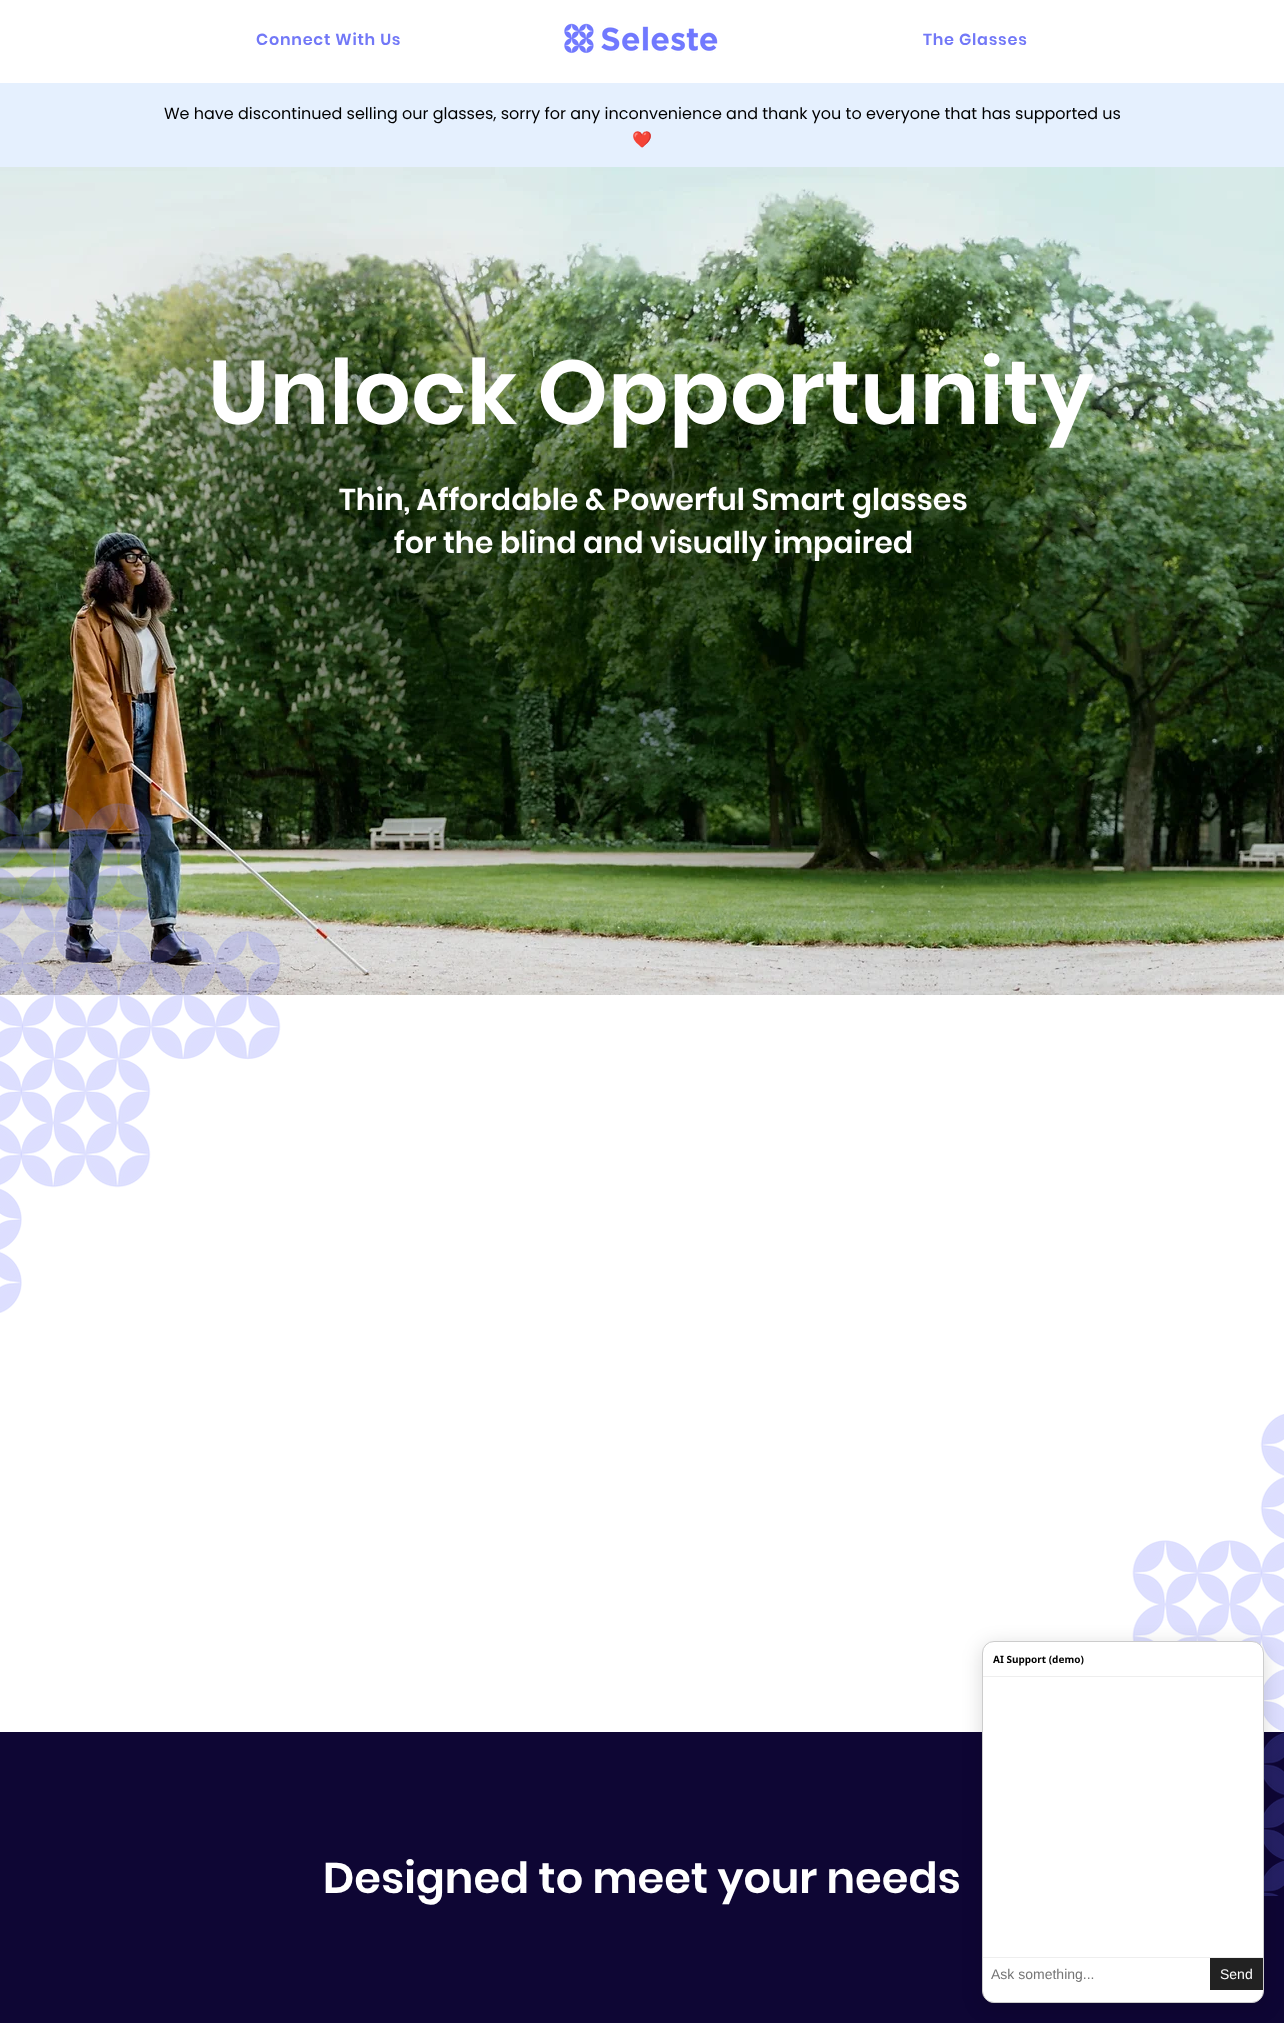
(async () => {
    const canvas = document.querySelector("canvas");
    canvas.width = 1284;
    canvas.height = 2023;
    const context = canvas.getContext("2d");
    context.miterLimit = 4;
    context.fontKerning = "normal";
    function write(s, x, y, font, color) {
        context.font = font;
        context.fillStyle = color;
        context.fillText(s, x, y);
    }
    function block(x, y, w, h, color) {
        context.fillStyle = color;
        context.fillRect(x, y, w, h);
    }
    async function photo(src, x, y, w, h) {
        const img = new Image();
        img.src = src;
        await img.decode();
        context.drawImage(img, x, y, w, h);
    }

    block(0, 0, 1284, 2023, "rgb(255, 255, 255)");
    await photo("media/1.png", 564, 23, 154, 31);
    context.letterSpacing = "0.75px";
    write("Connect With Us", 256, 45, "600 16px Poppins", "rgb(114, 120, 247)");
    write("The Glasses", 923, 45, "600 16px Poppins", "rgb(114, 120, 247)");
    block(0, 83, 1284, 84, "rgb(229, 240, 254)");
    context.letterSpacing = "0px";
    write("We have discontinued selling our glasses, sorry for any inconvenience and thank you to everyone that has supported us", 164, 119, "16px Poppins", "rgb(0, 0, 0)");
    write("❤️", 632, 145, "16px Noto Color Emoji", "rgb(0, 0, 0)");
    await photo("media/2.png", 0, 167, 1284, 828);
    write("Unlock Opportunity", 208, 424, "600 90px Poppins", "rgb(255, 255, 255)");
    write("Thin, Affordable & Powerful Smart glasses", 339, 510, "600 30px Poppins", "rgb(255, 255, 255)");
    write("for the blind and visually impaired", 394, 553, "600 30px Poppins", "rgb(255, 255, 255)");
    await photo("media/3.png", 0, 677, 281, 636);
    block(0, 1732, 1284, 291, "rgb(14, 6, 52)");
    write("Designed to meet your needs", 323, 1893, "600 43px Poppins", "rgb(255, 255, 255)");
    await photo("media/4.png", 1132, 1414, 152, 482);
    context.fillStyle = "rgba(0, 0, 0, 0.15)";
    context.filter = "blur(10px)";
    context.beginPath();
    context.roundRect(982, 1645, 282, 362, 12);
    context.fill();
    context.filter = "none";
    context.fillStyle = "rgb(255, 255, 255)";
    context.beginPath();
    context.roundRect(982.5, 1641.5, 281, 361, 11.5);
    context.fill();
    context.strokeStyle = "rgb(204, 204, 204)";
    context.stroke();
    block(983, 1676, 280, 1, "rgb(238, 238, 238)");
    write("AI Support (demo)", 993, 1663, "bold 10px Noto Sans", "rgb(0, 0, 0)");
    block(983, 1957, 280, 1, "rgb(238, 238, 238)");
    write("Ask something...", 991, 1979, "14px Liberation Sans", "rgb(117, 117, 117)");
    block(1210, 1958, 53, 32, "rgb(34, 34, 34)");
    write("Send", 1220, 1979, "14px Liberation Sans", "rgb(255, 255, 255)");
})();
